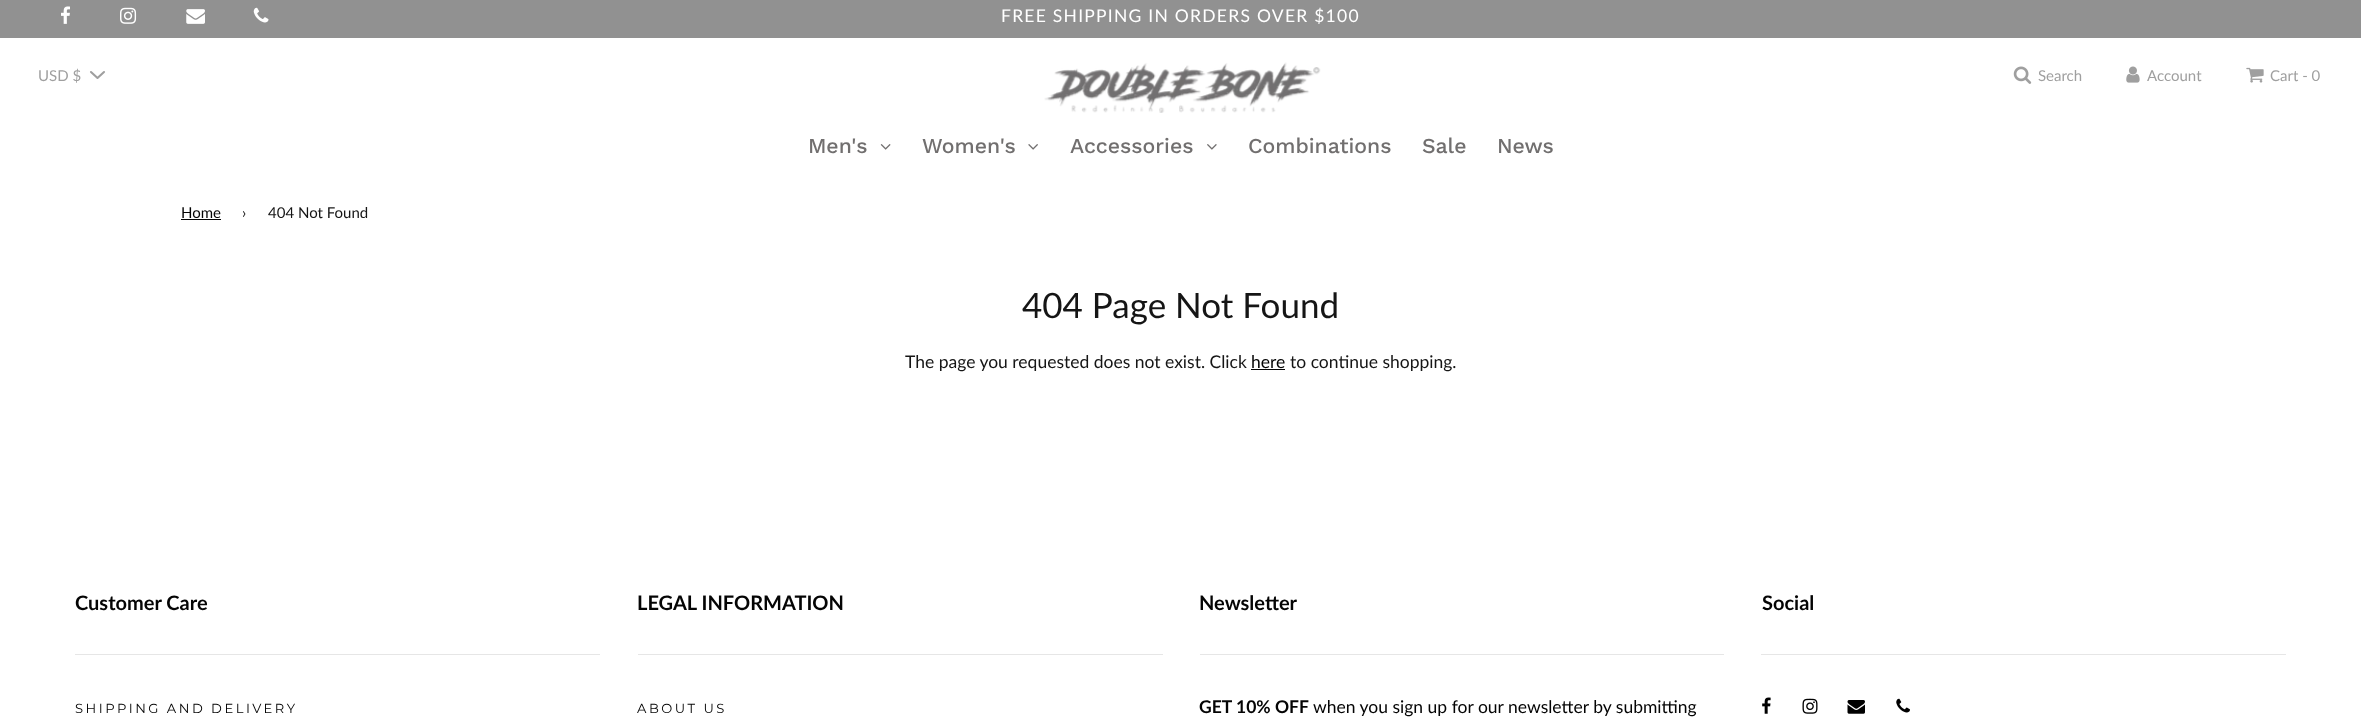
(async () => {
    const canvas = document.querySelector("canvas");
    canvas.width = 2361;
    canvas.height = 727;
    const context = canvas.getContext("2d");
    context.miterLimit = 4;
    context.fontKerning = "normal";
    function write(s, x, y, font, color) {
        context.font = font;
        context.fillStyle = color;
        context.fillText(s, x, y);
    }
    function block(x, y, w, h, color) {
        context.fillStyle = color;
        context.fillRect(x, y, w, h);
    }
    async function photo(src, x, y, w, h) {
        const img = new Image();
        img.src = src;
        await img.decode();
        context.drawImage(img, x, y, w, h);
    }

    block(0, 0, 2361, 727, "rgb(255, 255, 255)");
    block(0, 0, 2361, 38, "rgb(145, 145, 145)");
    await photo("media/1.png", 61, 6, 9, 18);
    await photo("media/2.png", 120, 7, 17, 17);
    await photo("media/3.png", 186, 9, 19, 15);
    await photo("media/4.png", 253, 7, 16, 16);
    context.letterSpacing = "1.25px";
    write("FREE SHIPPING IN ORDERS OVER $100", 1001, 22, "17.5px Lato", "rgb(255, 255, 255)");
    context.letterSpacing = "0px";
    write("USD $", 38, 81, "15px Lato", "rgb(159, 159, 159)");
    context.beginPath();
    context.moveTo(91, 72);
    context.lineTo(97.5, 78);
    context.lineTo(104, 72);
    context.strokeStyle = "rgb(159, 159, 159)";
    context.lineWidth = 2.1;
    context.lineCap = "round";
    context.lineJoin = "round";
    context.stroke();
    await photo("media/5.png", 1044, 62, 277, 51);
    await photo("media/6.png", 2013, 66, 19, 18);
    write("Search", 2038, 81, "15px Lato", "rgb(159, 159, 159)");
    await photo("media/7.png", 2126, 66, 14, 17);
    write("Account", 2147, 81, "15px Lato", "rgb(159, 159, 159)");
    await photo("media/8.png", 2246, 67, 18, 16);
    write("Cart - 0", 2270, 81, "15px Lato", "rgb(159, 159, 159)");
    write("Men's", 808, 153, "500 21.25px Work Sans", "rgb(113, 111, 111)");
    await photo("media/9.png", 880, 144, 11, 6);
    write("Women's", 922, 153, "500 21.25px Work Sans", "rgb(113, 111, 111)");
    await photo("media/10.png", 1028, 144, 10, 6);
    write("Accessories", 1070, 153, "500 21.25px Work Sans", "rgb(113, 111, 111)");
    await photo("media/11.png", 1207, 144, 10, 6);
    write("Combinations", 1248, 153, "500 21.25px Work Sans", "rgb(113, 111, 111)");
    write("Sale", 1422, 153, "500 21.25px Work Sans", "rgb(113, 111, 111)");
    write("News", 1497, 153, "500 21.25px Work Sans", "rgb(113, 111, 111)");
    write("Home", 181, 218, "15px Lato", "rgb(4, 4, 4)");
    block(181, 219, 40, 1, "rgb(4, 4, 4)");
    write("›", 242, 218, "15px Lato", "rgb(21, 21, 21)");
    write("404 Not Found", 268, 218, "15px Lato", "rgb(21, 21, 21)");
    write("404 Page Not Found", 1022, 318, "35px Lato", "rgb(21, 21, 21)");
    write("The page you requested does not exist. Click", 905, 368, "17.5px Lato", "rgb(21, 21, 21)");
    write("here", 1251, 368, "17.5px Lato", "rgb(4, 4, 4)");
    block(1251, 369, 34, 1, "rgb(4, 4, 4)");
    write("to continue shopping.", 1290, 368, "17.5px Lato", "rgb(21, 21, 21)");
    write("Customer Care", 75, 610, "bold 20px Lato", "rgb(4, 4, 4)");
    block(75, 654, 525, 1, "rgb(230, 230, 230)");
    context.letterSpacing = "2.5px";
    write("SHIPPING AND DELIVERY", 75, 713, "13.1px Montserrat", "rgb(4, 4, 4)");
    context.letterSpacing = "0px";
    write("LEGAL INFORMATION", 637, 610, "bold 20px Lato", "rgb(4, 4, 4)");
    block(638, 654, 525, 1, "rgb(230, 230, 230)");
    context.letterSpacing = "2.5px";
    write("ABOUT US", 637, 713, "13.1px Montserrat", "rgb(4, 4, 4)");
    context.letterSpacing = "0px";
    write("Newsletter", 1199, 610, "bold 20px Lato", "rgb(4, 4, 4)");
    block(1200, 654, 524, 1, "rgb(230, 230, 230)");
    write("GET 10% OFF", 1199, 713, "bold 17.5px Lato", "rgb(4, 4, 4)");
    write("when you sign up for our newsletter by submitting", 1313, 713, "17.5px Lato", "rgb(4, 4, 4)");
    write("Social", 1762, 610, "bold 20px Lato", "rgb(4, 4, 4)");
    block(1761, 654, 525, 1, "rgb(230, 230, 230)");
    await photo("media/12.png", 1762, 697, 9, 17);
    await photo("media/13.png", 1802, 698, 16, 16);
    await photo("media/14.png", 1847, 700, 18, 14);
    await photo("media/15.png", 1896, 698, 14, 15);
})();
